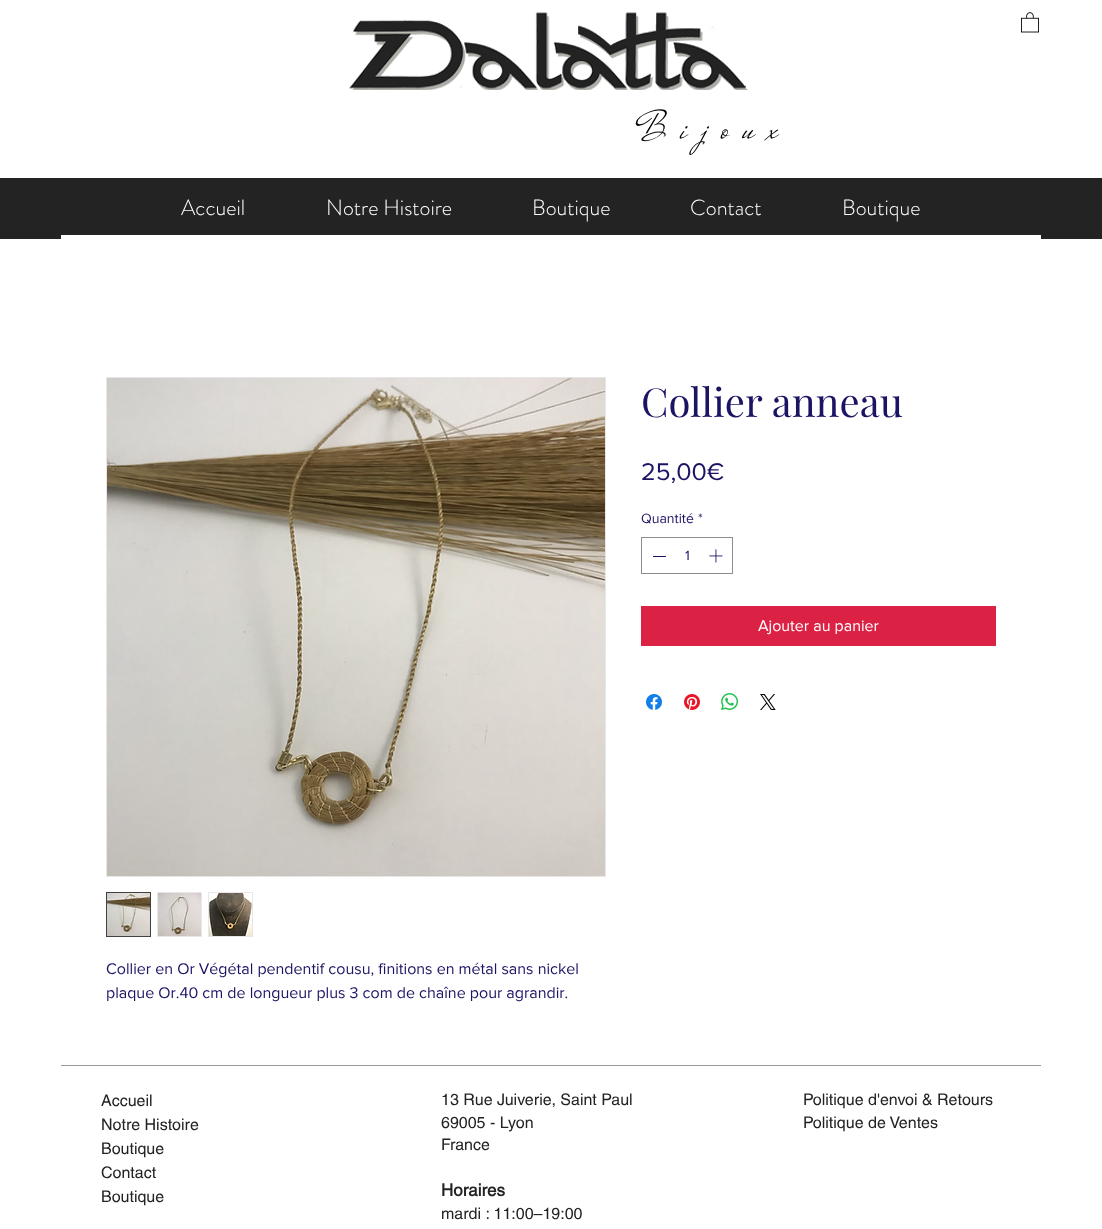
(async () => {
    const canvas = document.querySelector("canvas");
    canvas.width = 1102;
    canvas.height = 1229;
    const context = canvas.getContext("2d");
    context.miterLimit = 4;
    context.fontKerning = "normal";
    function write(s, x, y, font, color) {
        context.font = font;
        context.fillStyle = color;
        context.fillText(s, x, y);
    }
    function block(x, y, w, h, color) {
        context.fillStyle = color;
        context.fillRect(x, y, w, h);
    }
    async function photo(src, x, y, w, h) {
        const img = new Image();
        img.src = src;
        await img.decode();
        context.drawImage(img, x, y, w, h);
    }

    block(0, 0, 1102, 1229, "rgb(255, 255, 255)");
    await photo("media/1.png", 349, 12, 399, 78);
    await photo("media/2.png", 1021, 12, 18, 21);
    context.letterSpacing = "13.5px";
    write("Bijoux", 638, 138, "39px Mr De Haviland", "rgb(0, 0, 0)");
    block(0, 178, 1102, 61, "rgb(36, 35, 35)");
    context.letterSpacing = "0px";
    write("Accueil", 181, 215, "300 22px 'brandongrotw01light'", "rgb(255, 255, 255)");
    write("Notre Histoire", 326, 215, "300 22px 'brandongrotw01light'", "rgb(255, 255, 255)");
    write("Boutique", 532, 215, "300 22px 'brandongrotw01light'", "rgb(255, 255, 255)");
    write("Contact", 690, 215, "300 22px 'brandongrotw01light'", "rgb(255, 255, 255)");
    write("Boutique", 842, 215, "300 22px 'brandongrotw01light'", "rgb(255, 255, 255)");
    block(61, 235, 980, 4, "rgb(255, 255, 255)");
    write("Collier anneau", 641, 417, "40px Playfair Display", "rgb(27, 20, 100)");
    write("25,00€", 641, 480, "25px 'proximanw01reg'", "rgb(27, 20, 100)");
    write("Quantité", 641, 523, "14px 'proximanw01reg'", "rgb(27, 20, 100)");
    write("*", 698, 523, "14px 'proximanw01reg'", "rgb(27, 20, 100)");
    context.strokeStyle = "rgb(141, 141, 141)";
    context.strokeRect(641.5, 537.5, 91, 36);
    block(653, 556, 13, 1, "rgb(27, 20, 100)");
    write("1", 685, 560, "14px 'proximanw01reg'", "rgb(27, 20, 100)");
    await photo("media/3.png", 709, 549, 14, 14);
    block(641, 606, 355, 40, "rgb(220, 34, 68)");
    write("Ajouter au panier", 758, 631, "16px 'proximanw01reg'", "rgb(255, 255, 255)");
    await photo("media/4.png", 646, 694, 16, 16);
    await photo("media/5.png", 684, 694, 16, 16);
    await photo("media/6.png", 721, 693, 17, 17);
    await photo("media/7.png", 760, 694, 16, 16);
    context.strokeStyle = "rgb(232, 230, 230)";
    context.strokeRect(106.5, 377.5, 499, 499);
    await photo("media/8.png", 107, 378, 498, 498);
    context.strokeStyle = "rgb(65, 65, 65)";
    context.strokeRect(106.5, 892.5, 44, 44);
    await photo("media/9.png", 107, 893, 43, 43);
    context.strokeStyle = "rgb(232, 230, 230)";
    context.strokeRect(157.5, 892.5, 44, 44);
    await photo("media/10.png", 158, 893, 43, 43);
    context.strokeRect(208.5, 892.5, 44, 44);
    await photo("media/11.png", 209, 893, 43, 43);
    write("Collier en Or Végétal pendentif cousu, finitions en métal sans nickel", 106, 974, "16px 'proximanw01reg'", "rgb(27, 20, 100)");
    write("plaque Or.40 cm de longueur plus 3 com de chaîne pour agrandir.", 106, 998, "16px 'proximanw01reg'", "rgb(27, 20, 100)");
    block(61, 1065, 980, 1, "rgb(153, 153, 151)");
    write("Accueil", 101, 1106, "16px helvetica", "rgb(36, 35, 35)");
    write("Notre Histoire", 101, 1130, "16px helvetica", "rgb(36, 35, 35)");
    write("Boutique", 101, 1154, "16px helvetica", "rgb(36, 35, 35)");
    write("Contact", 101, 1178, "16px helvetica", "rgb(36, 35, 35)");
    write("Boutique", 101, 1202, "16px helvetica", "rgb(36, 35, 35)");
    write("13 Rue Juiverie, Saint Paul", 441, 1105, "16px helvetica", "rgb(36, 35, 35)");
    write("69005 - Lyon", 441, 1128, "16px helvetica", "rgb(36, 35, 35)");
    write("France", 441, 1150, "16px helvetica", "rgb(36, 35, 35)");
    write("Horaires", 441, 1196, "bold 17px helvetica", "rgb(36, 35, 35)");
    write("mardi : 11:00–19:00", 441, 1219, "16px helvetica", "rgb(36, 35, 35)");
    write("Politique d'envoi & Retours", 803, 1105, "16px helvetica", "rgb(36, 35, 35)");
    write("Politique de Ventes", 803, 1128, "16px helvetica", "rgb(36, 35, 35)");
})();
